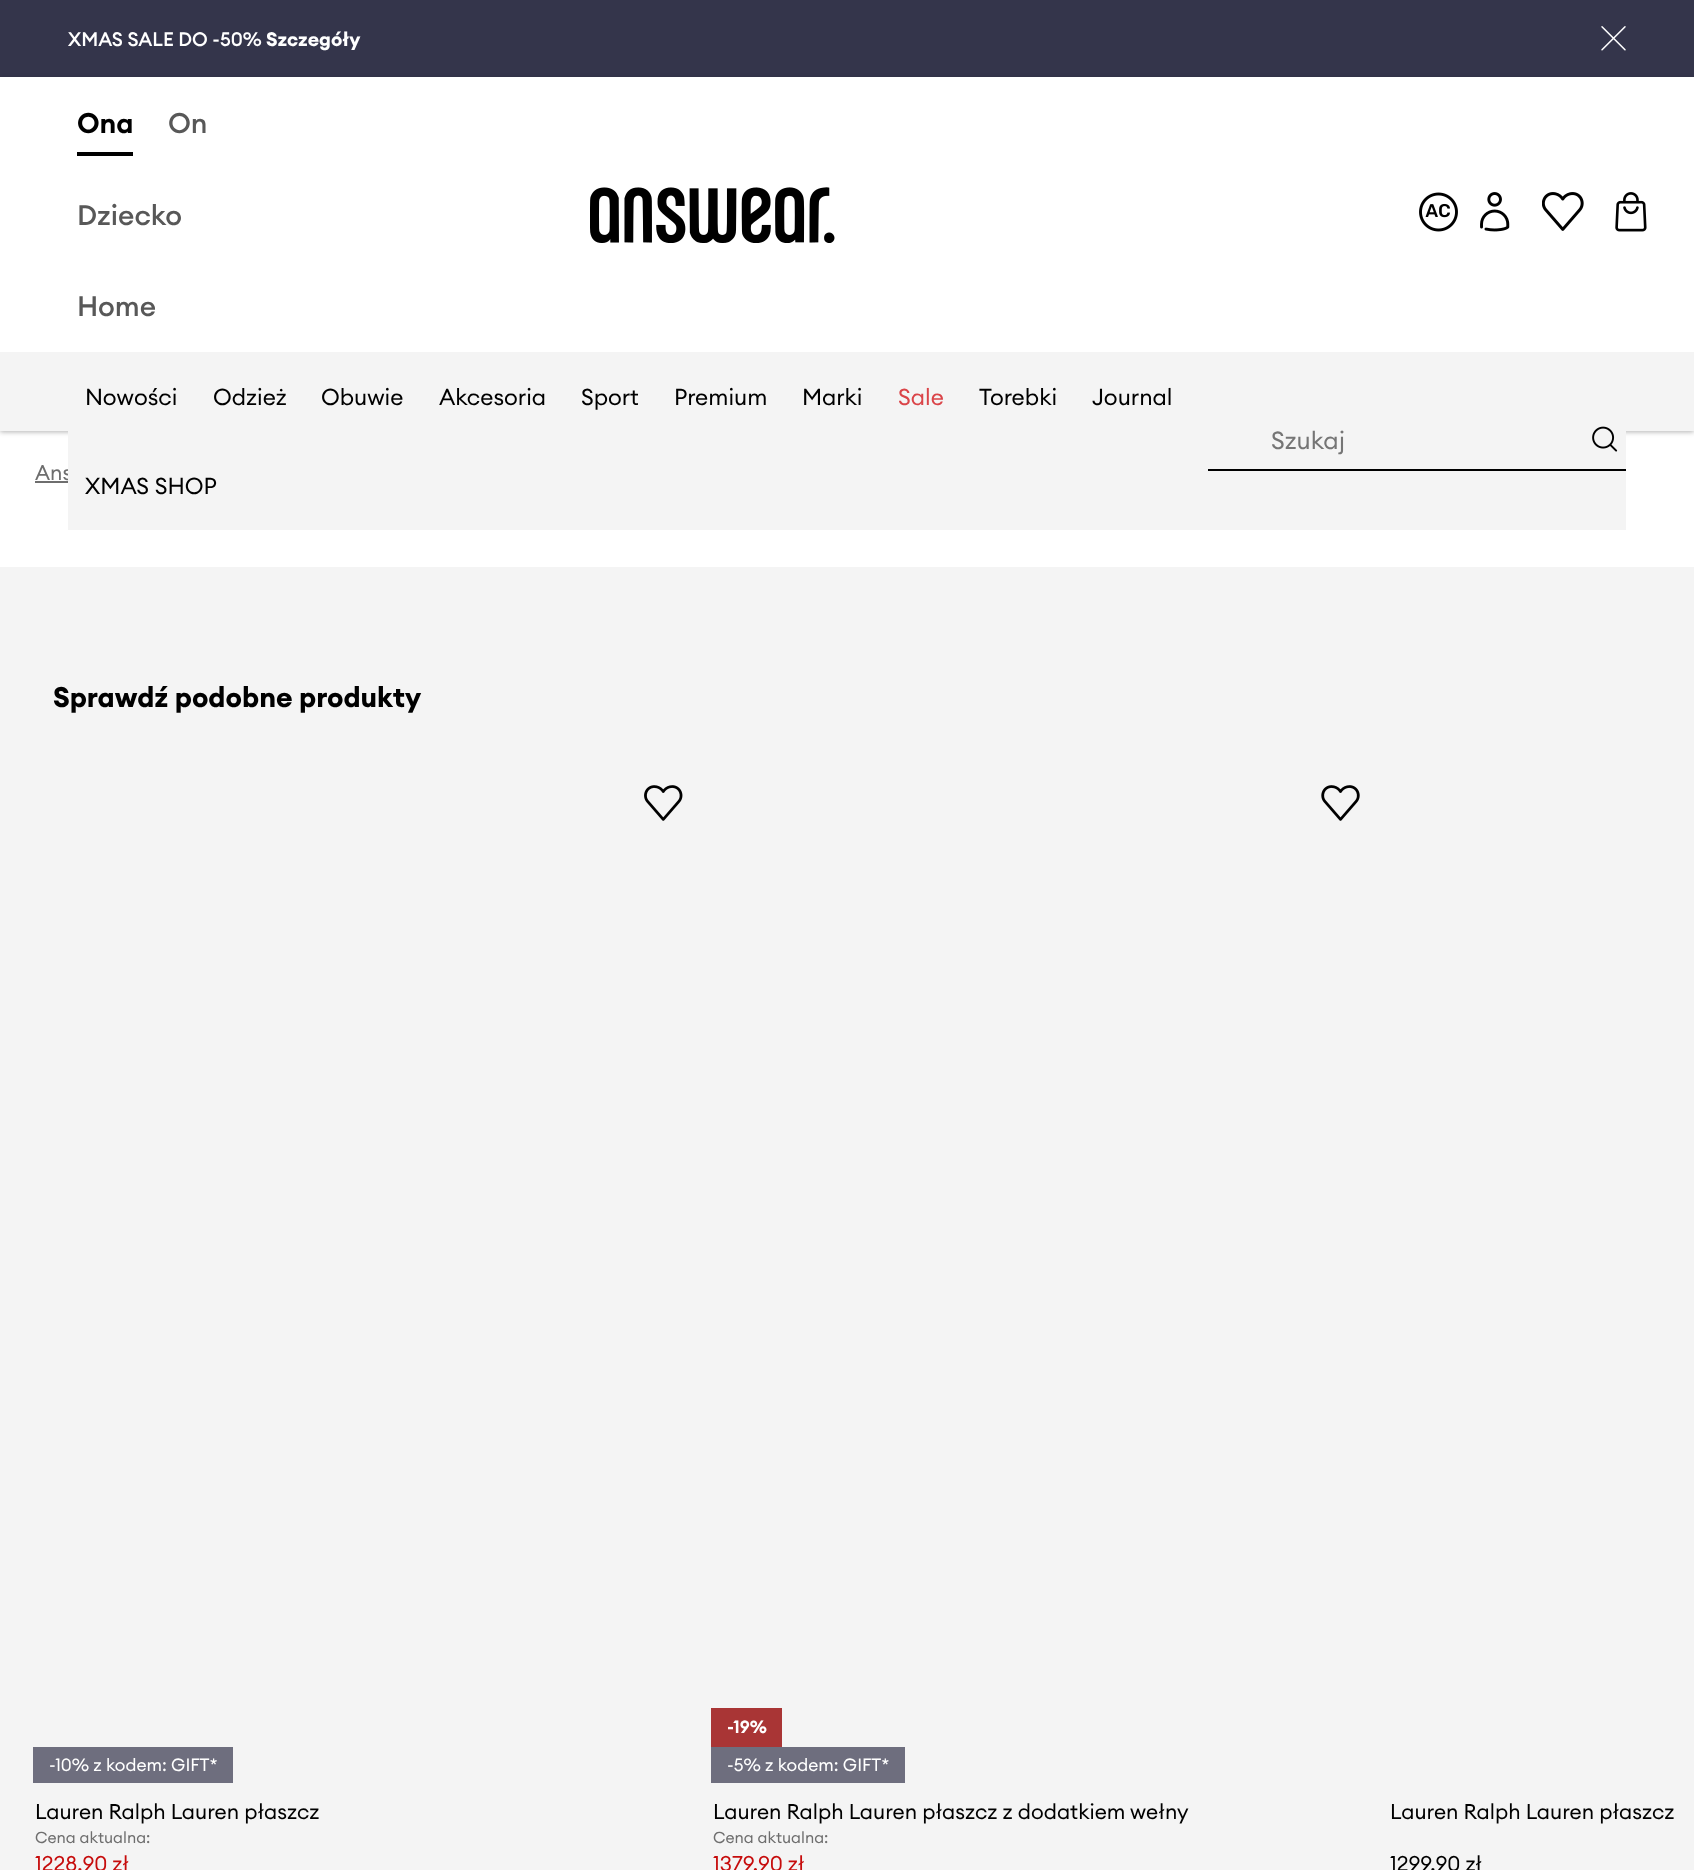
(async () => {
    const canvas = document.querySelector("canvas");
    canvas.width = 1694;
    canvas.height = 1870;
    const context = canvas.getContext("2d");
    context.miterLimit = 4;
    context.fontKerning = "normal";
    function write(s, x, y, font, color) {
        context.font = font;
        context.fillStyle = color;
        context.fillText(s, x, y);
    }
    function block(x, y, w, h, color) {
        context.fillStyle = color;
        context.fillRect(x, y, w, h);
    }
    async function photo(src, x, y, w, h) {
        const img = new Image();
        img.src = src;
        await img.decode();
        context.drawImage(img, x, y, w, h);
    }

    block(0, 0, 1694, 1870, "rgb(255, 255, 255)");
    block(0, 0, 1694, 77, "rgb(52, 53, 75)");
    write("XMAS SALE DO -50%", 68, 46, "500 19.25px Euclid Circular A", "rgb(255, 255, 255)");
    write("Szczegóły", 266, 46, "bold 19.25px Euclid Circular A", "rgb(255, 255, 255)");
    await photo("media/1.png", 1601, 26, 25, 25);
    context.fillStyle = "rgba(0, 0, 0, 0.3)";
    context.filter = "blur(2.5px)";
    context.beginPath();
    context.rect(0, 79, 1694, 353);
    context.fill();
    context.filter = "none";
    block(0, 77, 1694, 275, "rgb(255, 255, 255)");
    write("Ona", 77, 133, "600 28px Euclid Circular A", "rgb(0, 0, 0)");
    block(77, 152, 56, 4, "rgb(0, 0, 0)");
    write("On", 168, 133, "500 28px Euclid Circular A", "rgb(88, 88, 88)");
    write("Dziecko", 77, 225, "500 28px Euclid Circular A", "rgb(88, 88, 88)");
    write("Home", 77, 316, "500 28px Euclid Circular A", "rgb(88, 88, 88)");
    await photo("media/2.png", 590, 187, 245, 56);
    await photo("media/3.png", 1419, 192, 39, 40);
    await photo("media/4.png", 1480, 192, 30, 40);
    await photo("media/5.png", 1542, 192, 42, 39);
    await photo("media/6.png", 1615, 192, 32, 40);
    block(0, 352, 1694, 79, "rgb(244, 244, 244)");
    write("Ans", 35, 480, "21px Euclid Circular A", "rgb(110, 110, 110)");
    block(68, 431, 1558, 99, "rgb(244, 244, 244)");
    write("Nowości", 85, 405, "22.75px Euclid Circular A", "rgb(0, 0, 0)");
    write("Odzież", 213, 405, "22.75px Euclid Circular A", "rgb(0, 0, 0)");
    write("Obuwie", 321, 405, "22.75px Euclid Circular A", "rgb(0, 0, 0)");
    write("Akcesoria", 439, 405, "22.75px Euclid Circular A", "rgb(0, 0, 0)");
    write("Sport", 581, 405, "22.75px Euclid Circular A", "rgb(0, 0, 0)");
    write("Premium", 674, 405, "22.75px Euclid Circular A", "rgb(0, 0, 0)");
    write("Marki", 802, 405, "22.75px Euclid Circular A", "rgb(0, 0, 0)");
    write("Sale", 898, 405, "22.75px Euclid Circular A", "rgb(218, 68, 72)");
    write("Torebki", 979, 405, "22.75px Euclid Circular A", "rgb(0, 0, 0)");
    write("Journal", 1092, 405, "22.75px Euclid Circular A", "rgb(0, 0, 0)");
    write("XMAS SHOP", 85, 494, "22.75px Euclid Circular A", "rgb(0, 0, 0)");
    block(1208, 469, 418, 2, "rgb(0, 0, 0)");
    write("Szukaj", 1271, 449, "24.5px Euclid Circular A", "rgb(117, 117, 117)");
    await photo("media/7.png", 1592, 426, 26, 26);
    block(35, 481, 33, 2, "rgb(110, 110, 110)");
    block(0, 567, 1694, 1303, "rgb(244, 244, 244)");
    write("Sprawdź podobne produkty", 53, 707, "bold 28px Euclid Circular A", "rgb(0, 0, 0)");
    await photo("media/8.png", 644, 785, 39, 36);
    block(33, 1747, 200, 36, "rgb(110, 110, 126)");
    write("-10% z kodem: GIFT*", 49, 1771, "17.5px Euclid Circular A", "rgb(255, 255, 255)");
    write("Lauren Ralph Lauren płaszcz", 35, 1819, "21px Euclid Circular A", "rgb(0, 0, 0)");
    write("Cena aktualna:", 35, 1843, "15.75px Euclid Circular A", "rgb(110, 110, 110)");
    write("1228.90 zł", 35, 1871, "21px Euclid Circular A", "rgb(198, 12, 12)");
    await photo("media/9.png", 1321, 785, 39, 36);
    block(711, 1708, 71, 39, "rgb(169, 53, 53)");
    write("-19%", 727, 1733, "600 17.5px Euclid Circular A", "rgb(255, 255, 255)");
    block(711, 1747, 194, 36, "rgb(110, 110, 126)");
    write("-5% z kodem: GIFT*", 727, 1771, "17.5px Euclid Circular A", "rgb(255, 255, 255)");
    write("Lauren Ralph Lauren płaszcz z dodatkiem wełny", 713, 1819, "21px Euclid Circular A", "rgb(0, 0, 0)");
    write("Cena aktualna:", 713, 1843, "15.75px Euclid Circular A", "rgb(110, 110, 110)");
    write("1379.90 zł", 713, 1871, "21px Euclid Circular A", "rgb(198, 12, 12)");
    write("Lauren Ralph Lauren płaszcz", 1390, 1819, "21px Euclid Circular A", "rgb(0, 0, 0)");
    write("1299.90 zł", 1390, 1871, "21px Euclid Circular A", "rgb(0, 0, 0)");
})();
